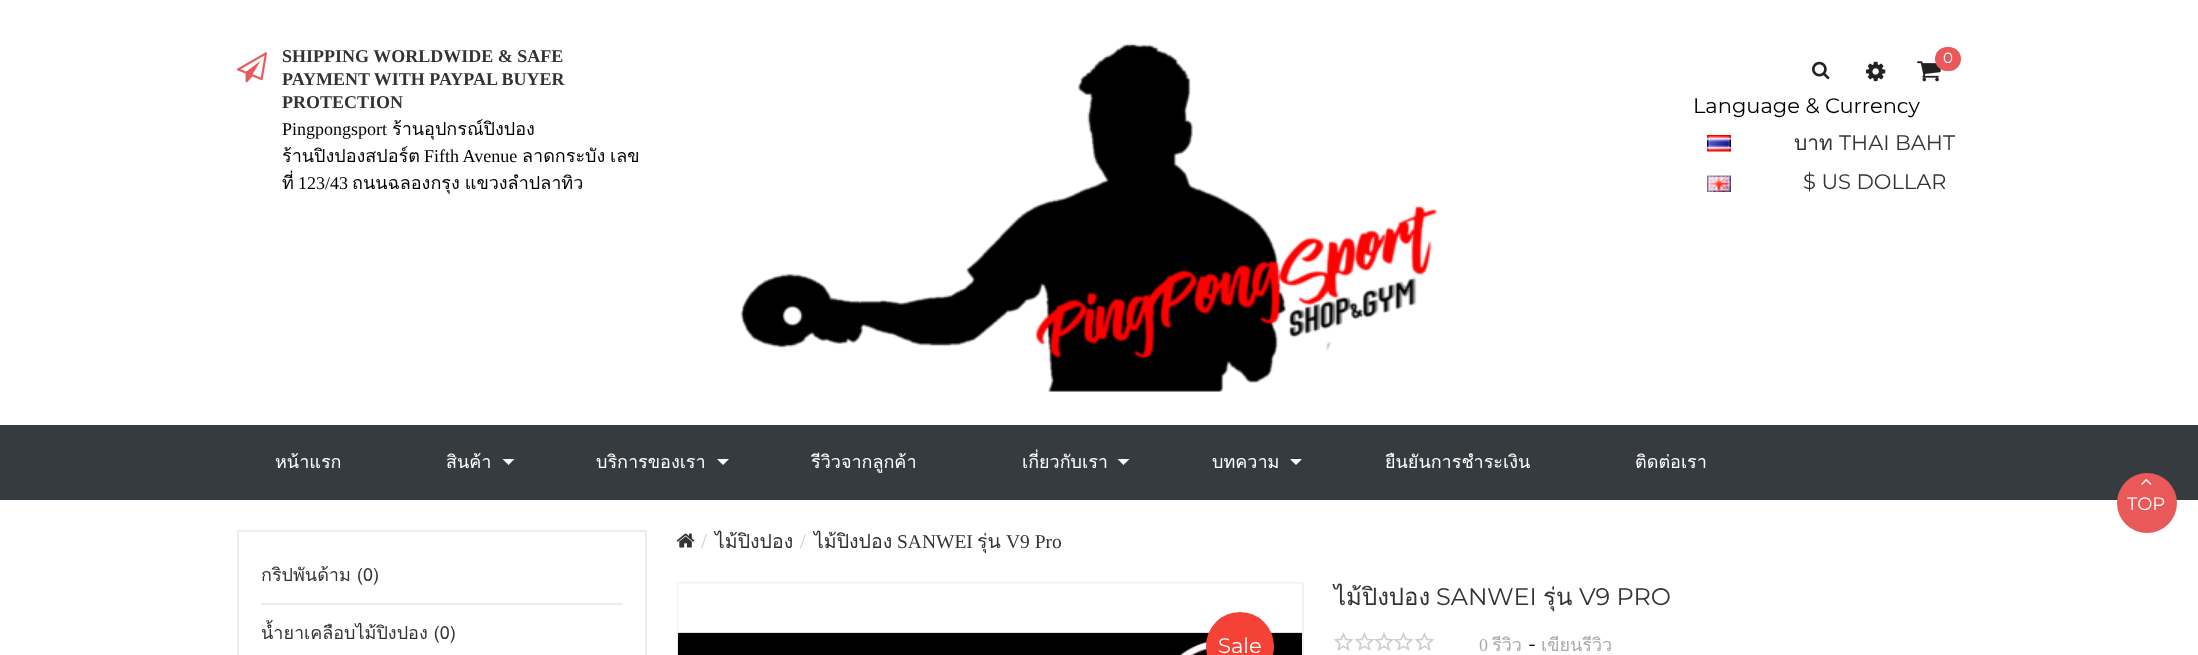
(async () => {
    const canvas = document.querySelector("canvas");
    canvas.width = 2198;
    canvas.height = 655;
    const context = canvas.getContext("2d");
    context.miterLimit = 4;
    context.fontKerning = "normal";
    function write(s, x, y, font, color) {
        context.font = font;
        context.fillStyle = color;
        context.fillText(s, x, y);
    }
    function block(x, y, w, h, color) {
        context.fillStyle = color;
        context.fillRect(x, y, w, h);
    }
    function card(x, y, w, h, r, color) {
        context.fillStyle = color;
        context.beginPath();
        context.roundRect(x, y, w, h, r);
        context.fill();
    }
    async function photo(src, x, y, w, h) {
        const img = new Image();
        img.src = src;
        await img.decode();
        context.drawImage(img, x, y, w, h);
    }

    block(0, 0, 2198, 655, "rgb(255, 255, 255)");
    await photo("media/1.png", 237, 52, 30, 31);
    write("SHIPPING WORLDWIDE & SAFE", 282, 62, "bold 18px Liberation Serif", "rgb(51, 51, 51)");
    write("PAYMENT WITH PAYPAL BUYER", 282, 85, "bold 18px Liberation Serif", "rgb(51, 51, 51)");
    write("PROTECTION", 282, 108, "bold 18px Liberation Serif", "rgb(51, 51, 51)");
    write("Pingpongsport", 282, 135, "18px Liberation Serif", "rgb(0, 0, 0)");
    write("ร้านอุปกรณ์ปิงปอง", 392, 135, "18px Loma", "rgb(0, 0, 0)");
    context.save();
    context.beginPath();
    context.rect(282, 30, 365, 167);
    context.clip();
    write("ร้านปิงปองสปอร์ต", 282, 162, "18px Loma", "rgb(0, 0, 0)");
    context.restore();
    write("Fifth Avenue", 424, 162, "18px Liberation Serif", "rgb(0, 0, 0)");
    write("ลาดกระบัง", 522, 162, "18px Loma", "rgb(0, 0, 0)");
    write("เลข", 610, 162, "18px Loma", "rgb(0, 0, 0)");
    context.save();
    context.beginPath();
    context.rect(282, 30, 365, 167);
    context.clip();
    write("ที่", 282, 189, "18px Loma", "rgb(0, 0, 0)");
    context.restore();
    write("123/43", 298, 189, "18px Liberation Serif", "rgb(0, 0, 0)");
    context.wordSpacing = "-1px";
    write("ถนนฉลองกรุง แขวงลำปลาทิว", 352, 189, "18px Loma", "rgb(0, 0, 0)");
    await photo("media/2.png", 740, 43, 698, 349);
    await photo("media/3.png", 1917, 61, 24, 21);
    card(1935, 47, 26, 24, 12, "rgb(234, 89, 89)");
    context.wordSpacing = "0px";
    write("0", 1943, 63, "15px Montserrat", "rgb(255, 255, 255)");
    await photo("media/4.png", 1812, 61, 18, 19);
    await photo("media/5.png", 1866, 61, 20, 21);
    write("Language & Currency", 1693, 113, "21px Montserrat", "rgb(0, 0, 0)");
    await photo("media/6.png", 1707, 135, 24, 17);
    await photo("media/7.png", 1707, 175, 24, 17);
    write("บาท", 1794, 150, "21px Loma", "rgb(51, 51, 51)");
    write("THAI BAHT", 1839, 150, "21px Montserrat", "rgb(51, 51, 51)");
    write("$ US DOLLAR", 1803, 189, "21px Montserrat", "rgb(51, 51, 51)");
    block(0, 425, 2198, 75, "rgb(54, 59, 63)");
    write("หน้าแรก", 275, 468, "18px Loma", "rgb(255, 255, 255)");
    write("สินค้า", 446, 468, "18px Loma", "rgb(255, 255, 255)");
    context.beginPath();
    context.moveTo(502.5, 459);
    context.lineTo(514.5, 459);
    context.lineTo(508.5, 465);
    context.closePath();
    context.fill();
    write("บริการของเรา", 596, 468, "18px Loma", "rgb(255, 255, 255)");
    context.beginPath();
    context.moveTo(717, 459);
    context.lineTo(729, 459);
    context.lineTo(723, 465);
    context.closePath();
    context.fill();
    write("รีวิวจากลูกค้า", 811, 468, "18px Loma", "rgb(255, 255, 255)");
    write("เกี่ยวกับเรา", 1022, 468, "18px Loma", "rgb(255, 255, 255)");
    context.beginPath();
    context.moveTo(1117.5, 459);
    context.lineTo(1129.5, 459);
    context.lineTo(1123.5, 465);
    context.closePath();
    context.fill();
    write("บทความ", 1212, 468, "18px Loma", "rgb(255, 255, 255)");
    context.beginPath();
    context.moveTo(1290, 459);
    context.lineTo(1302, 459);
    context.lineTo(1296, 465);
    context.closePath();
    context.fill();
    write("ยืนยันการชำระเงิน", 1385, 468, "18px Loma", "rgb(255, 255, 255)");
    write("ติดต่อเรา", 1635, 468, "18px Loma", "rgb(255, 255, 255)");
    context.fillStyle = "rgb(234, 89, 89)";
    context.beginPath();
    context.arc(2147, 503, 30, 0, Math.PI * 2);
    context.fill();
    await photo("media/8.png", 2141, 479, 11, 6);
    write("TOP", 2127, 510, "18px Montserrat", "rgb(255, 255, 255)");
    context.strokeStyle = "rgb(237, 237, 237)";
    context.lineWidth = 2;
    context.strokeRect(238, 531, 408, 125);
    block(261, 603, 362, 2, "rgb(237, 237, 237)");
    write("กริปพันด้าม (0)", 261, 581, "18px Loma", "rgb(51, 51, 51)");
    write("น้ำยาเคลือบไม้ปิงปอง (0)", 261, 639, "18px Loma", "rgb(51, 51, 51)");
    await photo("media/9.png", 676, 533, 19, 15);
    write("/", 701, 548, "21px Liberation Serif", "rgb(204, 204, 204)");
    write("ไม้ปิงปอง", 715, 548, "19.5px Loma", "rgb(51, 51, 51)");
    write("/", 800, 548, "21px Liberation Serif", "rgb(204, 204, 204)");
    write("ไม้ปิงปอง", 814, 548, "19.5px Loma", "rgb(51, 51, 51)");
    write("SANWEI", 897, 548, "19.5px Liberation Serif", "rgb(51, 51, 51)");
    write("รุ่น", 977, 548, "19.5px Loma", "rgb(51, 51, 51)");
    write("V9 Pro", 1006, 548, "19.5px Liberation Serif", "rgb(51, 51, 51)");
    context.strokeStyle = "rgb(241, 241, 241)";
    context.strokeRect(678, 583, 625, 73);
    await photo("media/10.png", 678, 583, 624, 72);
    context.fillStyle = "rgb(244, 67, 54)";
    context.beginPath();
    context.arc(1240, 646, 34, 0, Math.PI * 2);
    context.fill();
    write("Sale", 1218, 653, "21px Montserrat", "rgb(255, 255, 255)");
    write("ไม้ปิงปอง", 1334, 605, "24px Loma", "rgb(51, 51, 51)");
    write("SANWEI", 1436, 605, "24px Montserrat", "rgb(51, 51, 51)");
    write("รุ่น", 1543, 605, "24px Loma", "rgb(51, 51, 51)");
    write("V9 PRO", 1579, 605, "24px Montserrat", "rgb(51, 51, 51)");
    await photo("media/11.png", 1333, 632, 21, 19);
    await photo("media/11.png", 1354, 632, 21, 19);
    await photo("media/12.png", 1374, 632, 20, 19);
    await photo("media/13.png", 1394, 632, 20, 19);
    await photo("media/11.png", 1414, 632, 21, 19);
    write("0", 1479, 651, "18px Liberation Serif", "rgb(170, 170, 170)");
    write("รีวิว", 1492, 651, "18px Loma", "rgb(170, 170, 170)");
    write("-", 1528, 651, "21px Montserrat", "rgb(0, 0, 0)");
    write("เขียนรีวิว", 1541, 651, "18px Loma", "rgb(170, 170, 170)");
})();
